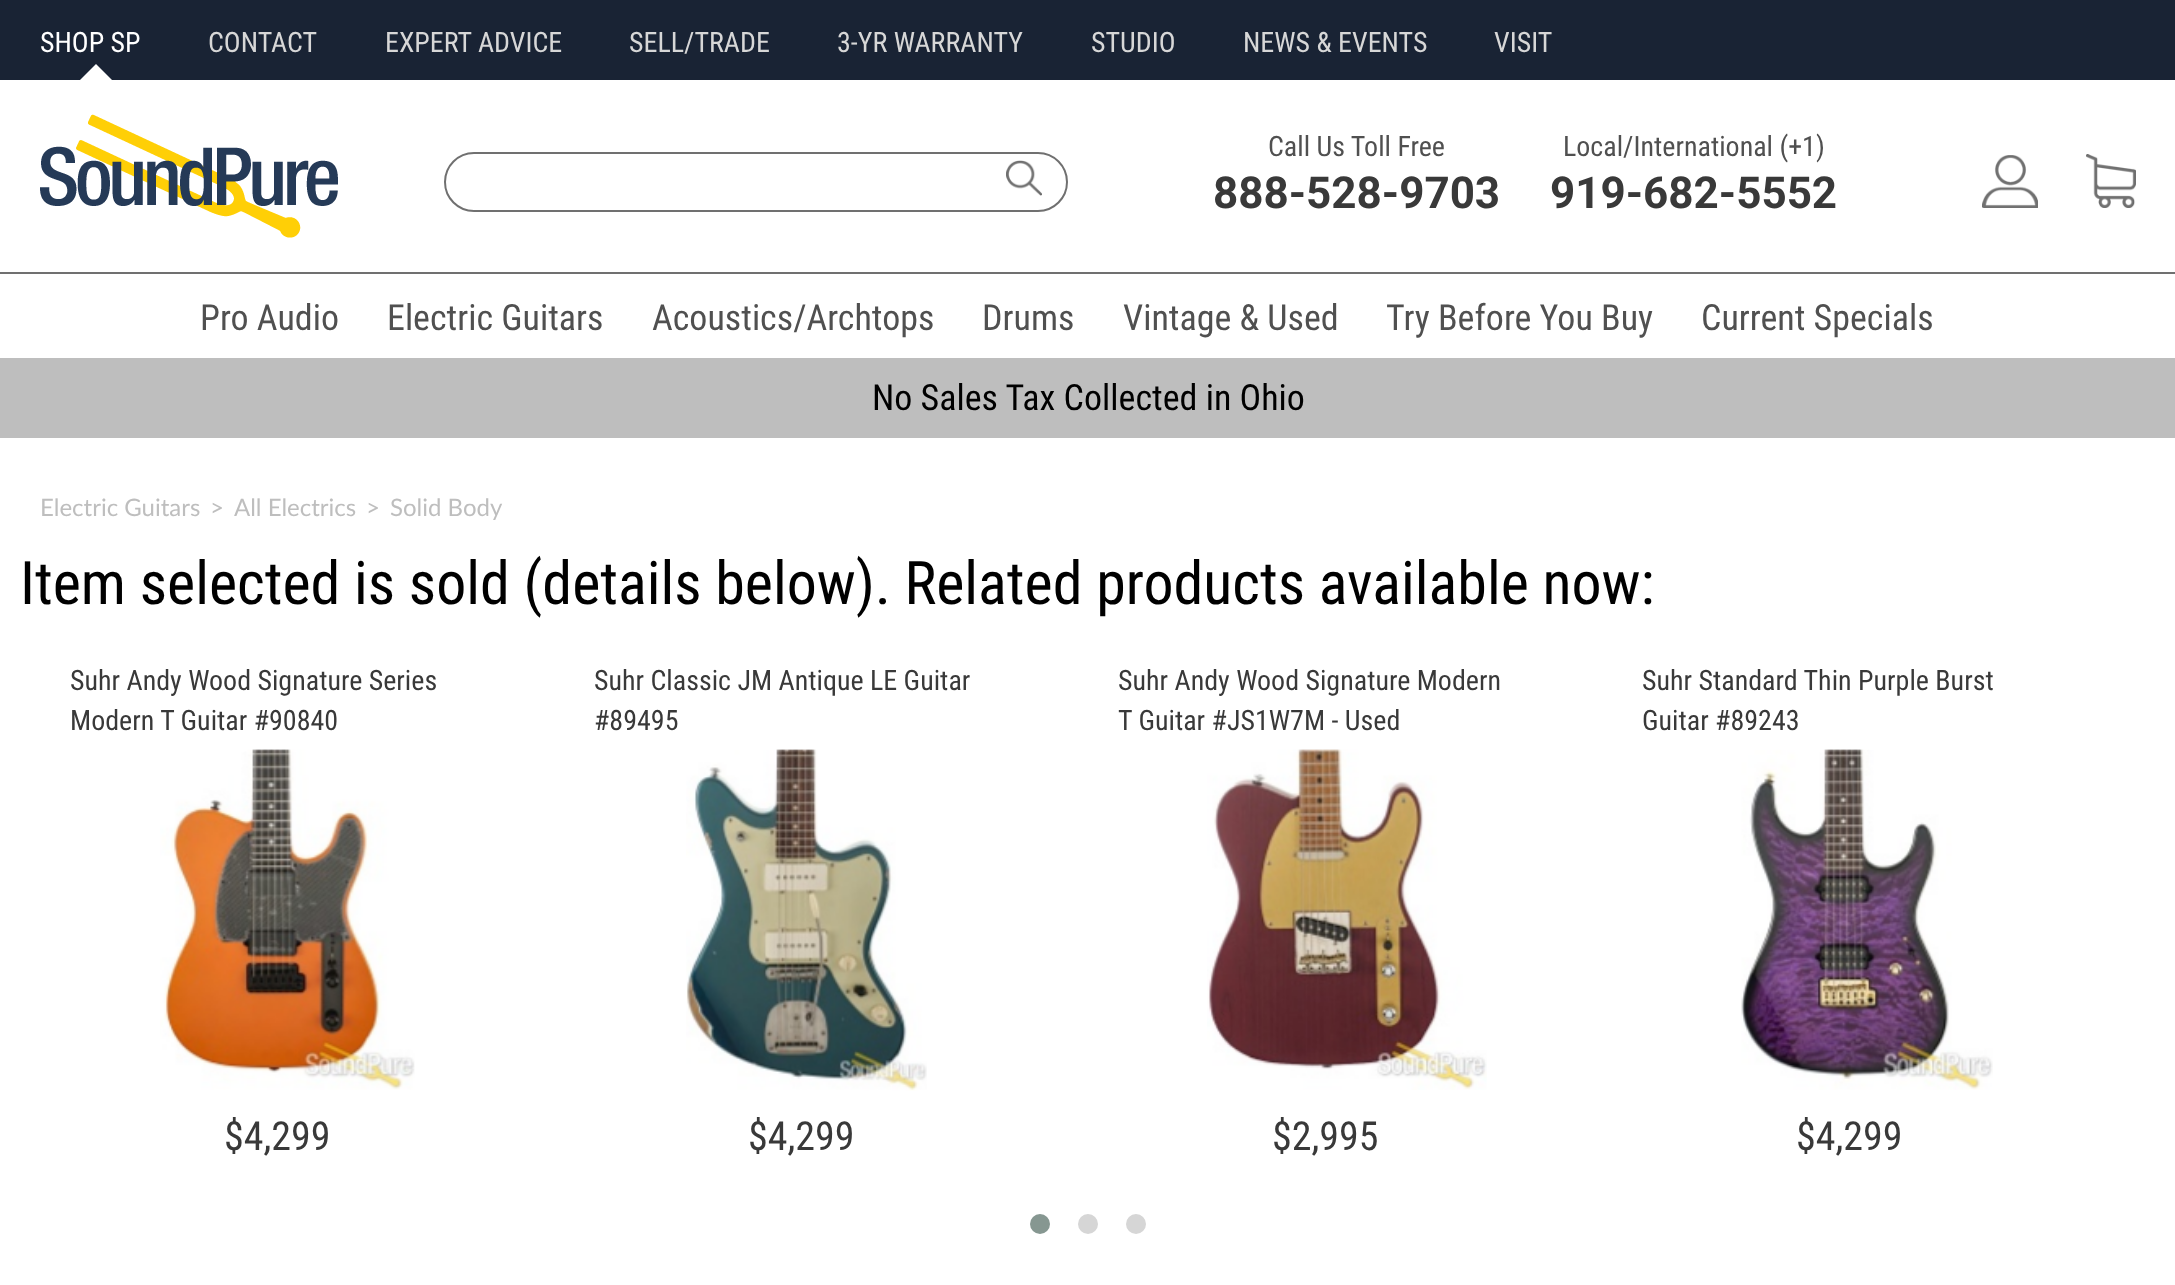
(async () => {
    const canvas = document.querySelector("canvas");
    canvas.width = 2175;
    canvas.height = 1285;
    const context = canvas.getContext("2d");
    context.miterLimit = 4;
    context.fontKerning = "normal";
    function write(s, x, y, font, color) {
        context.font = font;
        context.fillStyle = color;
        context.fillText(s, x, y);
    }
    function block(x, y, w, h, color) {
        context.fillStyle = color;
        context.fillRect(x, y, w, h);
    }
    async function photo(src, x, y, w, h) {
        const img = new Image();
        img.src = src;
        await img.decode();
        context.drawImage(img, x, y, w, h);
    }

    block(0, 0, 2175, 1285, "rgb(255, 255, 255)");
    block(0, 0, 2175, 80, "rgb(25, 35, 52)");
    write("SHOP SP", 40, 52, "28px Roboto Condensed", "rgb(255, 255, 255)");
    context.beginPath();
    context.moveTo(112, 80);
    context.lineTo(80, 80);
    context.lineTo(96, 64);
    context.closePath();
    context.fill();
    write("CONTACT", 208, 52, "28px Roboto Condensed", "rgb(215, 215, 215)");
    write("EXPERT ADVICE", 385, 52, "28px Roboto Condensed", "rgb(215, 215, 215)");
    write("SELL/TRADE", 629, 52, "28px Roboto Condensed", "rgb(215, 215, 215)");
    write("3-YR WARRANTY", 837, 52, "28px Roboto Condensed", "rgb(215, 215, 215)");
    write("STUDIO", 1091, 52, "28px Roboto Condensed", "rgb(215, 215, 215)");
    write("NEWS & EVENTS", 1243, 52, "28px Roboto Condensed", "rgb(215, 215, 215)");
    write("VISIT", 1494, 52, "28px Roboto Condensed", "rgb(215, 215, 215)");
    await photo("media/1.png", 40, 114, 298, 124);
    context.beginPath();
    context.roundRect(445, 153, 622, 58, 29);
    context.strokeStyle = "rgb(112, 112, 112)";
    context.lineWidth = 2;
    context.stroke();
    await photo("media/2.png", 1006, 160, 36, 36);
    write("Call Us Toll Free", 1268, 156, "28px Roboto Condensed", "rgb(80, 80, 80)");
    write("888-528-9703", 1213, 208, "bold 44px Roboto", "rgb(57, 57, 57)");
    write("Local/International (+1)", 1563, 156, "28px Roboto Condensed", "rgb(80, 80, 80)");
    write("919-682-5552", 1550, 208, "bold 44px Roboto", "rgb(57, 57, 57)");
    await photo("media/3.png", 1982, 155, 56, 53);
    await photo("media/4.png", 2086, 154, 50, 54);
    block(0, 272, 2175, 2, "rgb(112, 112, 112)");
    write("Pro Audio", 200, 330, "36px Roboto Condensed", "rgb(80, 80, 80)");
    write("Electric Guitars", 387, 330, "36px Roboto Condensed", "rgb(80, 80, 80)");
    write("Acoustics/Archtops", 652, 330, "36px Roboto Condensed", "rgb(80, 80, 80)");
    write("Drums", 982, 330, "36px Roboto Condensed", "rgb(80, 80, 80)");
    write("Vintage & Used", 1123, 330, "36px Roboto Condensed", "rgb(80, 80, 80)");
    write("Try Before You Buy", 1386, 330, "36px Roboto Condensed", "rgb(80, 80, 80)");
    write("Current Specials", 1701, 330, "36px Roboto Condensed", "rgb(80, 80, 80)");
    block(0, 358, 2175, 80, "rgb(190, 190, 190)");
    write("No Sales Tax Collected in Ohio", 872, 410, "36px Roboto Condensed", "rgb(0, 0, 0)");
    write("Electric Guitars", 40, 516, "24px Lato", "rgb(190, 190, 190)");
    write(">", 210, 516, "24px Lato", "rgb(190, 190, 190)");
    write("All Electrics", 234, 516, "24px Lato", "rgb(190, 190, 190)");
    write(">", 366, 516, "24px Lato", "rgb(190, 190, 190)");
    write("Solid Body", 390, 516, "24px Lato", "rgb(190, 190, 190)");
    write("Item selected is sold (details below). Related products available now:", 20, 604, "60px Roboto Condensed", "rgb(0, 0, 0)");
    write("Suhr Andy Wood Signature Series", 70, 690, "28px Roboto Condensed", "rgb(57, 57, 57)");
    write("Modern T Guitar #90840", 70, 730, "28px Roboto Condensed", "rgb(57, 57, 57)");
    await photo("media/5.png", 160, 749, 255, 341);
    write("$4,299", 224, 1150, "40px Roboto Condensed", "rgb(57, 57, 57)");
    write("Suhr Classic JM Antique LE Guitar", 594, 690, "28px Roboto Condensed", "rgb(57, 57, 57)");
    write("#89495", 594, 730, "28px Roboto Condensed", "rgb(57, 57, 57)");
    await photo("media/6.png", 686, 749, 241, 342);
    write("$4,299", 748, 1150, "40px Roboto Condensed", "rgb(57, 57, 57)");
    write("Suhr Andy Wood Signature Modern", 1118, 690, "28px Roboto Condensed", "rgb(57, 57, 57)");
    write("T Guitar #JS1W7M - Used", 1118, 730, "28px Roboto Condensed", "rgb(57, 57, 57)");
    await photo("media/7.png", 1207, 749, 280, 341);
    write("$2,995", 1272, 1150, "40px Roboto Condensed", "rgb(57, 57, 57)");
    write("Suhr Standard Thin Purple Burst", 1642, 690, "28px Roboto Condensed", "rgb(57, 57, 57)");
    write("Guitar #89243", 1642, 730, "28px Roboto Condensed", "rgb(57, 57, 57)");
    await photo("media/8.png", 1741, 749, 252, 341);
    write("$4,299", 1796, 1150, "40px Roboto Condensed", "rgb(57, 57, 57)");
    context.fillStyle = "rgb(134, 151, 145)";
    context.beginPath();
    context.arc(1040, 1224, 10, 0, Math.PI * 2);
    context.fill();
    context.fillStyle = "rgb(214, 214, 214)";
    context.beginPath();
    context.arc(1088, 1224, 10, 0, Math.PI * 2);
    context.fill();
    context.beginPath();
    context.arc(1136, 1224, 10, 0, Math.PI * 2);
    context.fill();
})();
